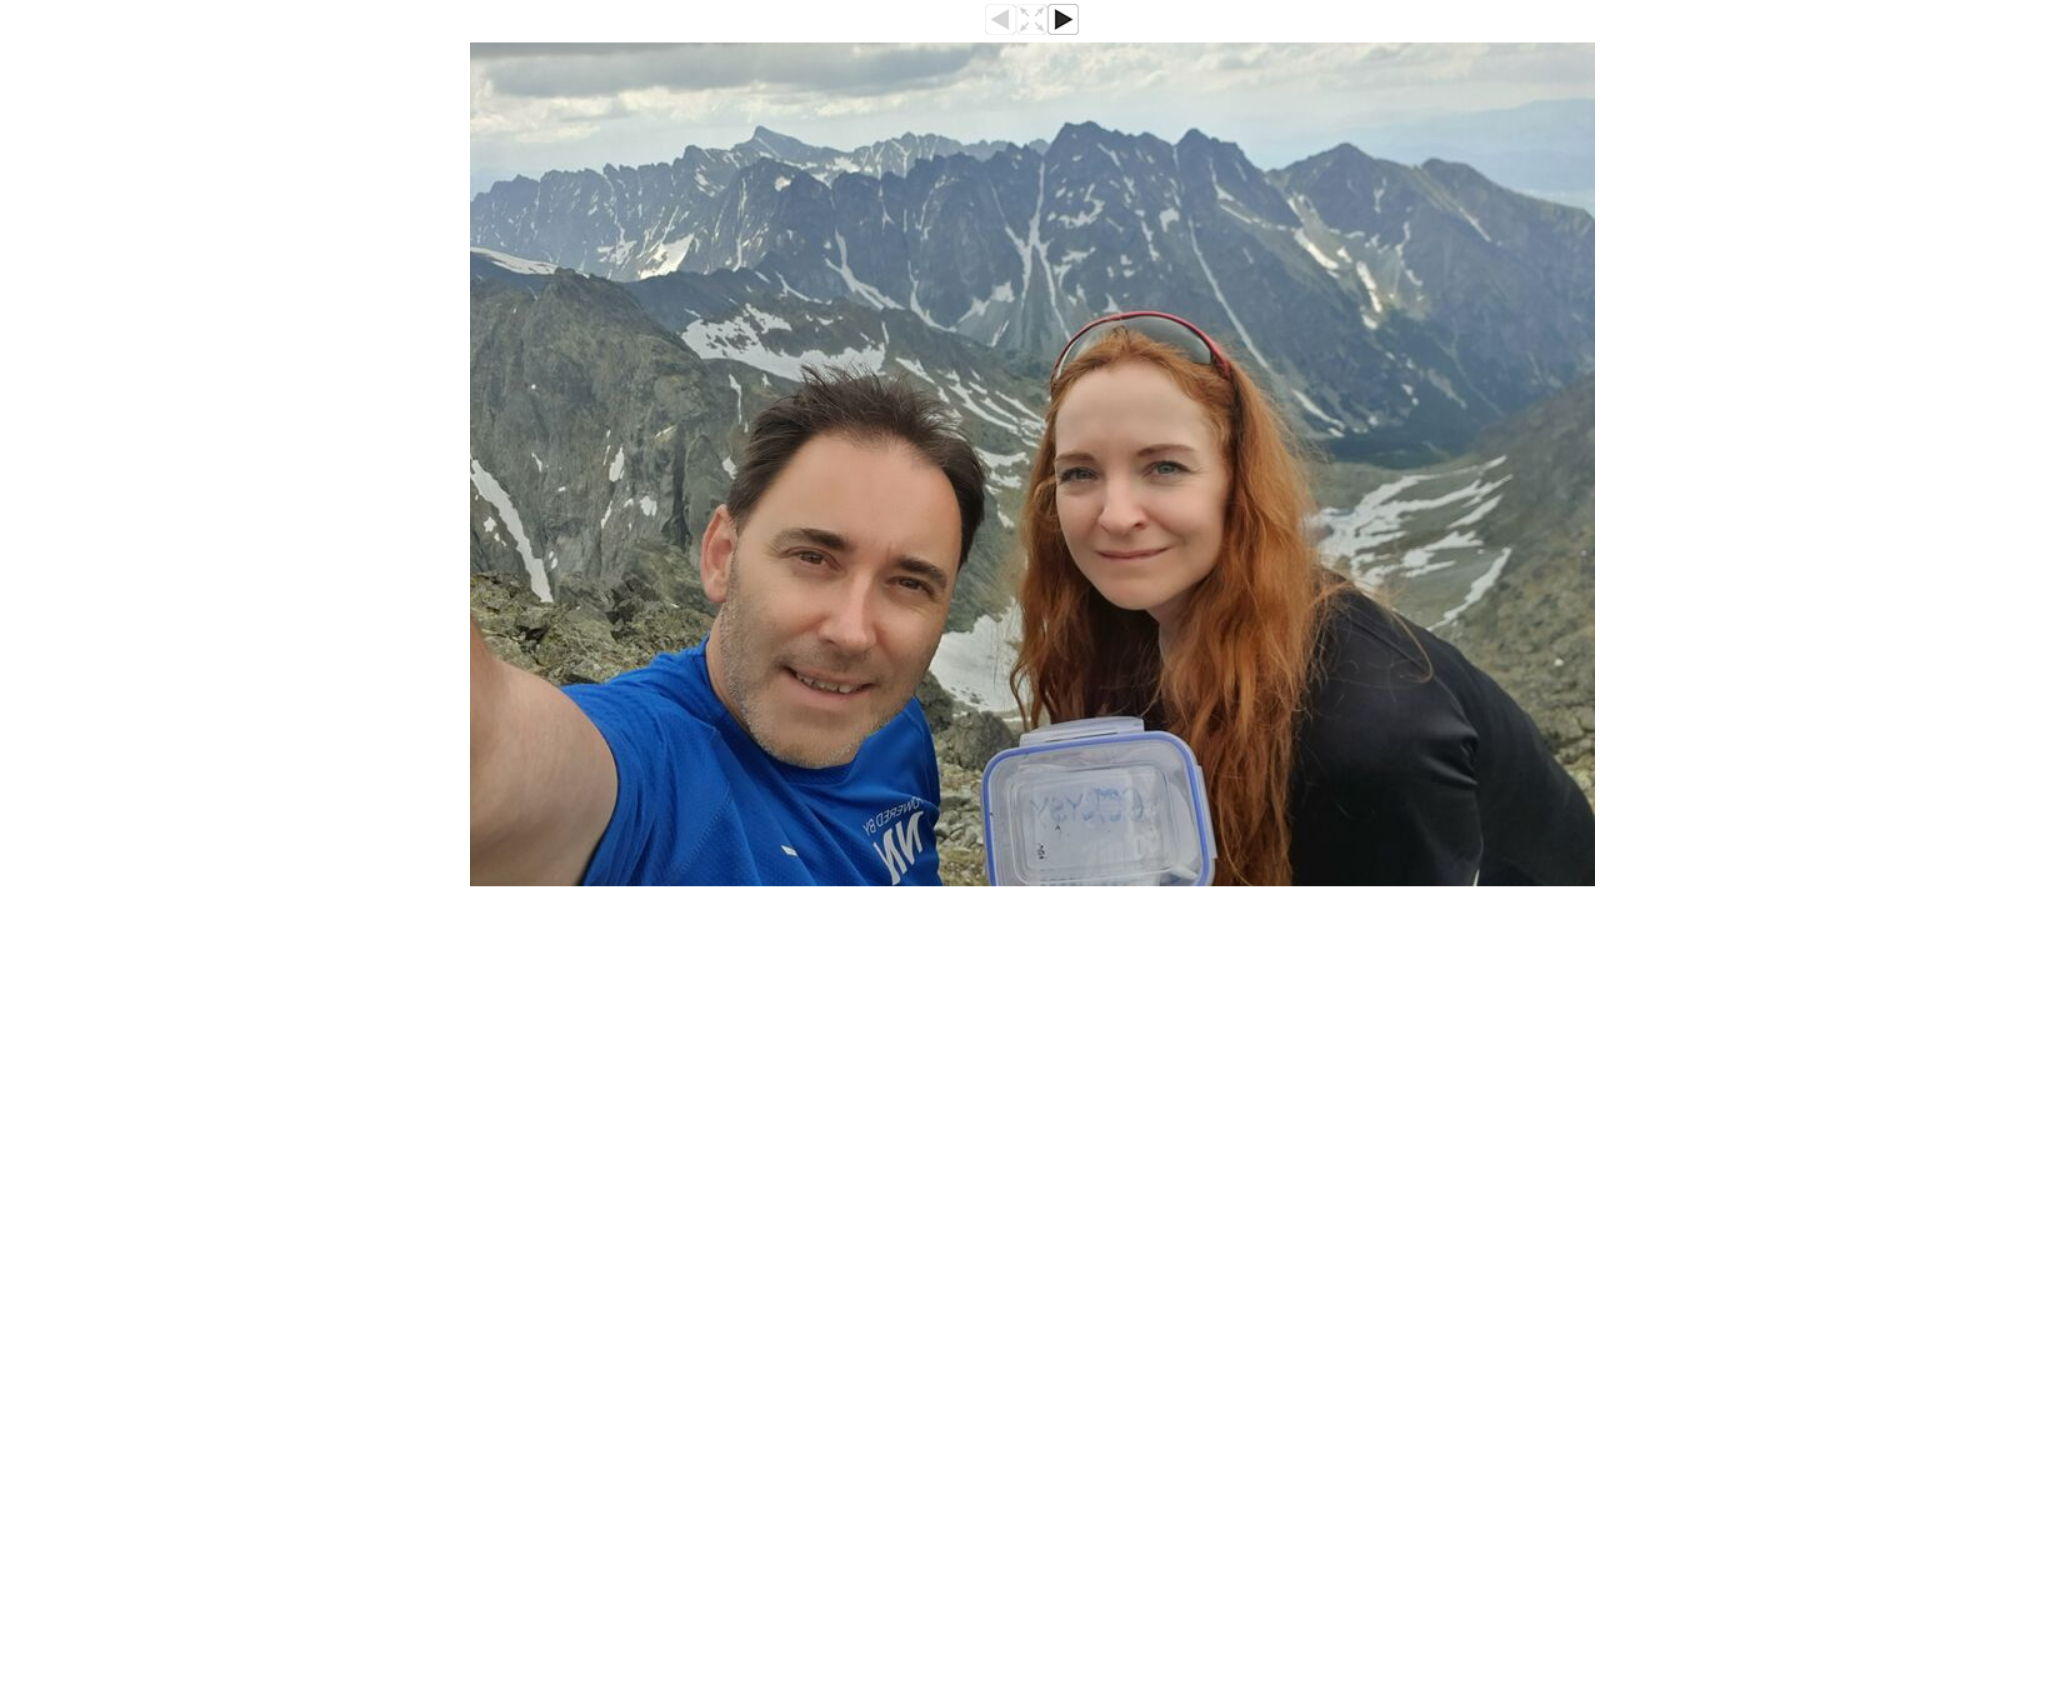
(async () => {
    const canvas = document.querySelector("canvas");
    canvas.width = 2065;
    canvas.height = 1695;
    const context = canvas.getContext("2d");
    context.miterLimit = 4;
    context.fontKerning = "normal";
    function block(x, y, w, h, color) {
        context.fillStyle = color;
        context.fillRect(x, y, w, h);
    }
    async function photo(src, x, y, w, h) {
        const img = new Image();
        img.src = src;
        await img.decode();
        context.drawImage(img, x, y, w, h);
    }

    block(0, 0, 2065, 1695, "rgb(255, 255, 255)");
    await photo("media/1.png", 985, 3, 32, 32);
    await photo("media/2.png", 1016, 3, 32, 32);
    await photo("media/3.png", 1047, 3, 32, 32);
    await photo("media/4.png", 470, 42, 1125, 845);
})();
